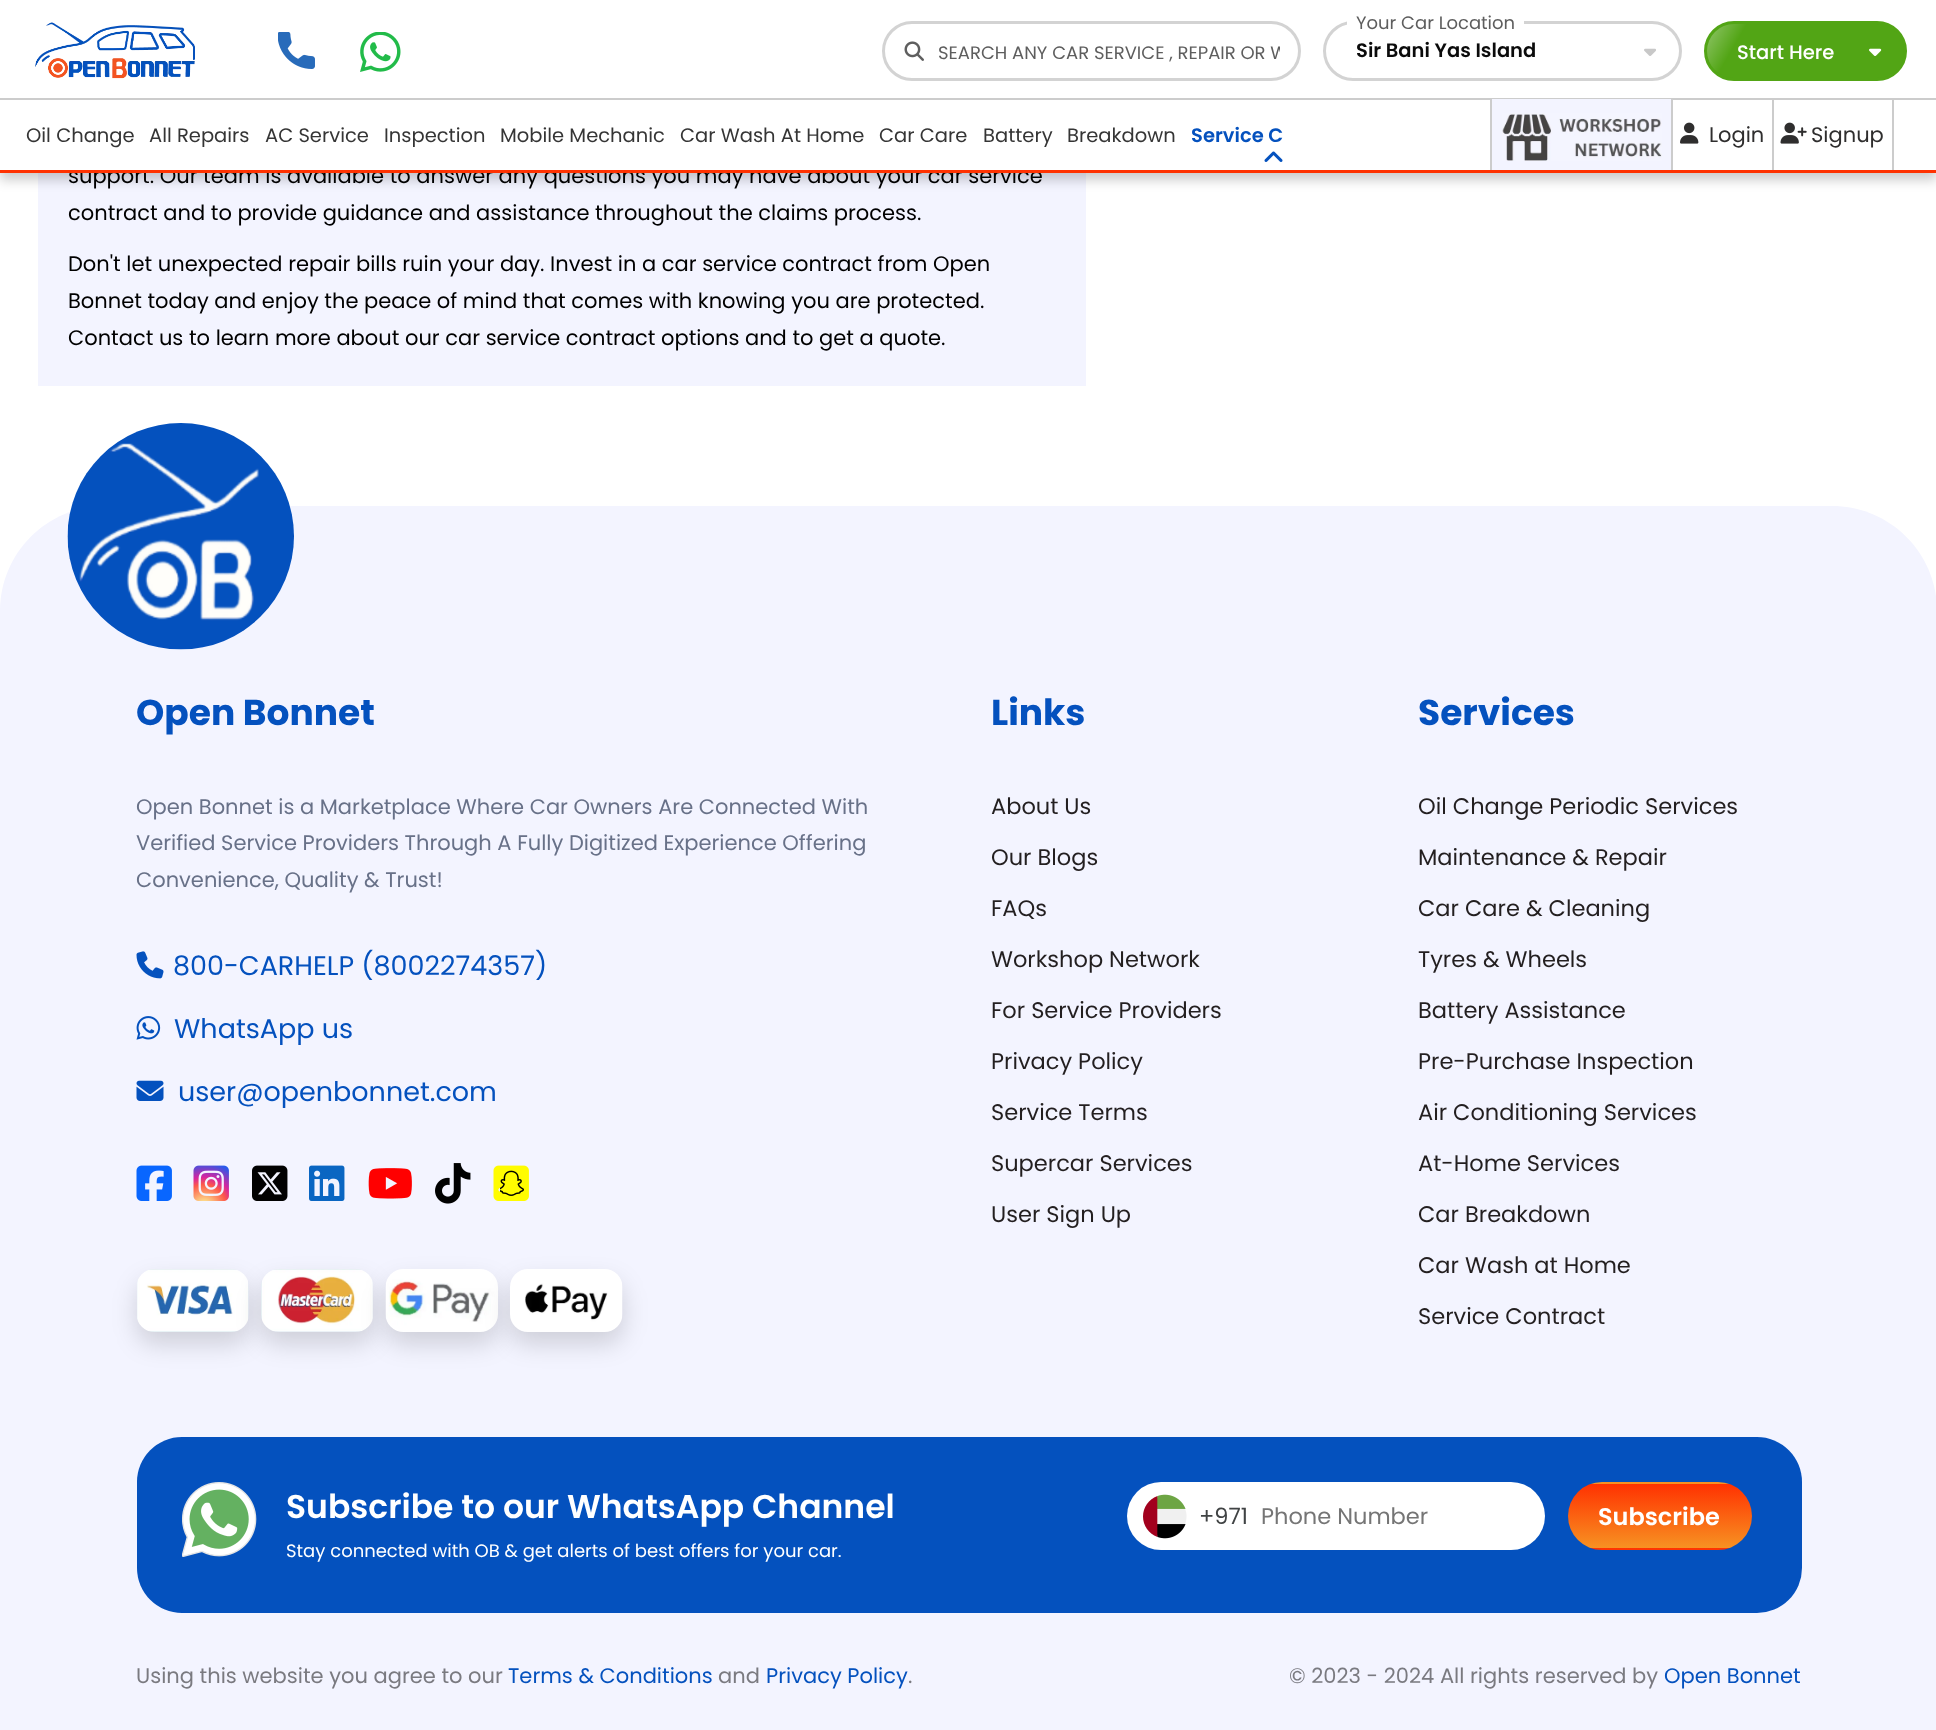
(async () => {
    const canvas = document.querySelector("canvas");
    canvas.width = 1936;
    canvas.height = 1730;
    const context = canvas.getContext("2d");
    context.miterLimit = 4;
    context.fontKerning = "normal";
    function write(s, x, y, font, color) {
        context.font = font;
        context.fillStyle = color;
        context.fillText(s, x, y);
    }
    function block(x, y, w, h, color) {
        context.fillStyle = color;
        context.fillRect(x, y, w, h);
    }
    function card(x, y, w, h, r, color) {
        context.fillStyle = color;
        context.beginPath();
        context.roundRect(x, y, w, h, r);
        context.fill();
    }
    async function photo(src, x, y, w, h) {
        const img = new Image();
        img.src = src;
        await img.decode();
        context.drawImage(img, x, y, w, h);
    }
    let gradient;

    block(0, 0, 1936, 1730, "rgb(255, 255, 255)");
    block(38, 173, 1048, 213, "rgb(243, 244, 255)");
    context.fillStyle = "rgba(0, 0, 0, 0.2)";
    context.filter = "blur(6px)";
    context.beginPath();
    context.rect(0, 8, 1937, 172);
    context.fill();
    context.filter = "none";
    write("support. Our team is available to answer any questions you may have about your car service", 68, 183, "21px Poppins", "rgb(0, 0, 0)");
    block(0, 0, 1936, 170, "rgb(255, 255, 255)");
    block(0, 170, 1936, 3, "rgb(255, 50, 1)");
    await photo("media/1.png", 35, 22, 160, 57);
    await photo("media/2.png", 278, 32, 37, 37);
    await photo("media/3.png", 360, 32, 41, 40);
    context.beginPath();
    context.roundRect(883.5, 22.5, 416, 57, 28.5);
    context.strokeStyle = "rgb(211, 211, 211)";
    context.lineWidth = 3;
    context.stroke();
    await photo("media/4.png", 904, 41, 20, 20);
    context.save();
    context.beginPath();
    context.rect(938, 21, 342, 63);
    context.clip();
    write("SEARCH ANY CAR SERVICE , REPAIR OR W", 938, 59, "18px Poppins", "rgb(94, 94, 94)");
    context.restore();
    context.beginPath();
    context.roundRect(1324.5, 22.5, 356, 57, 28.5);
    context.stroke();
    block(1347, 21, 177, 4, "rgb(255, 255, 255)");
    write("Your Car Location", 1356, 29, "18px Poppins", "rgb(94, 94, 94)");
    write("Sir Bani Yas Island", 1356, 57, "600 19.5px Poppins", "rgb(11, 11, 11)");
    await photo("media/5.png", 1644, 48, 12, 8);
    context.fillStyle = "rgb(82, 165, 21)";
    context.beginPath();
    context.roundRect(1705.5, 22.5, 200, 57, 28.5);
    context.fill();
    context.strokeStyle = "rgb(82, 165, 21)";
    context.stroke();
    gradient = context.createLinearGradient(1575, -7.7, 1779, 110);
    gradient.addColorStop(0.3, "rgba(255, 255, 255, 0)");
    gradient.addColorStop(0.5, "rgba(255, 255, 255, 0.5)");
    gradient.addColorStop(0.7, "rgba(255, 255, 255, 0)");
    context.fillStyle = gradient;
    context.beginPath();
    context.roundRect(1707, 24, 90, 54, [27, 0, 0, 27]);
    context.fill();
    write("Start Here", 1737, 59, "500 19.5px Poppins", "rgb(255, 255, 255)");
    await photo("media/6.png", 1869, 48, 13, 8);
    block(0, 98, 1936, 2, "rgb(204, 204, 204)");
    write("Oil Change", 26, 142, "19.5px Poppins", "rgb(53, 53, 53)");
    write("All Repairs", 149, 142, "19.5px Poppins", "rgb(53, 53, 53)");
    write("AC Service", 265, 142, "19.5px Poppins", "rgb(53, 53, 53)");
    write("Inspection", 384, 142, "19.5px Poppins", "rgb(53, 53, 53)");
    write("Mobile Mechanic", 500, 142, "19.5px Poppins", "rgb(53, 53, 53)");
    write("Car Wash At Home", 680, 142, "19.5px Poppins", "rgb(53, 53, 53)");
    write("Car Care", 879, 142, "19.5px Poppins", "rgb(53, 53, 53)");
    write("Battery", 983, 142, "19.5px Poppins", "rgb(53, 53, 53)");
    write("Breakdown", 1067, 142, "19.5px Poppins", "rgb(53, 53, 53)");
    write("Service C", 1191, 142, "600 19.5px Poppins", "rgb(4, 81, 190)");
    await photo("media/7.png", 1264, 151, 19, 11);
    block(1492, 99, 179, 71, "rgb(243, 244, 255)");
    block(1671, 99, 2, 71, "rgb(204, 204, 204)");
    block(1490, 99, 2, 71, "rgb(204, 204, 204)");
    await photo("media/8.png", 1502, 113, 160, 48);
    block(1772, 99, 2, 71, "rgb(204, 204, 204)");
    await photo("media/9.png", 1680, 122, 19, 22);
    write("Login", 1709, 142, "21px Poppins", "rgb(47, 46, 46)");
    block(1892, 99, 2, 71, "rgb(204, 204, 204)");
    await photo("media/10.png", 1780, 122, 27, 22);
    write("Signup", 1811, 142, "21px Poppins", "rgb(47, 46, 46)");
    write("contract and to provide guidance and assistance throughout the claims process.", 68, 220, "21px Poppins", "rgb(0, 0, 0)");
    write("Don't let unexpected repair bills ruin your day. Invest in a car service contract from Open", 68, 271, "21px Poppins", "rgb(0, 0, 0)");
    write("Bonnet today and enjoy the peace of mind that comes with knowing you are protected.", 68, 308, "21px Poppins", "rgb(0, 0, 0)");
    write("Contact us to learn more about our car service contract options and to get a quote.", 68, 345, "21px Poppins", "rgb(0, 0, 0)");
    context.fillStyle = "rgb(243, 244, 255)";
    context.beginPath();
    context.moveTo(105, 506);
    context.lineTo(1832, 506);
    context.bezierCurveTo(1890, 506, 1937, 553, 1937, 611);
    context.lineTo(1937, 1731);
    context.lineTo(0, 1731);
    context.lineTo(0, 611);
    context.bezierCurveTo(0, 553, 47, 506, 105, 506);
    context.closePath();
    context.fill();
    await photo("media/11.png", 67, 423, 227, 227);
    write("Open Bonnet", 136, 725, "bold 36px Poppins", "rgb(4, 81, 190)");
    write("Open Bonnet is a Marketplace Where Car Owners Are Connected With", 136, 814, "21px Poppins", "rgb(104, 113, 136)");
    write("Verified Service Providers Through A Fully Digitized Experience Offering", 136, 850, "21px Poppins", "rgb(104, 113, 136)");
    write("Convenience, Quality & Trust!", 136, 887, "21px Poppins", "rgb(104, 113, 136)");
    await photo("media/12.png", 136, 951, 28, 28);
    write("800-CARHELP (8002274357)", 173, 975, "27px Poppins", "rgb(4, 81, 190)");
    await photo("media/13.png", 136, 1016, 25, 24);
    write("WhatsApp us", 174, 1038, "27px Poppins", "rgb(4, 81, 190)");
    await photo("media/14.png", 136, 1080, 28, 21);
    write("user@openbonnet.com", 178, 1101, "27px Poppins", "rgb(4, 81, 190)");
    await photo("media/15.png", 136, 1165, 36, 36);
    await photo("media/16.png", 193, 1165, 36, 36);
    await photo("media/17.png", 252, 1165, 36, 36);
    await photo("media/18.png", 309, 1165, 36, 36);
    await photo("media/19.png", 368, 1168, 44, 31);
    await photo("media/20.png", 435, 1163, 36, 41);
    block(500, 1170, 24, 26, "rgb(0, 0, 0)");
    await photo("media/21.png", 493, 1165, 36, 36);
    context.fillStyle = "rgba(0, 0, 0, 0.15)";
    context.filter = "blur(12px)";
    context.beginPath();
    context.roundRect(137, 1281, 112, 63, 18);
    context.fill();
    context.filter = "none";
    await photo("media/22.png", 137, 1269, 112, 63);
    context.filter = "blur(12px)";
    context.beginPath();
    context.roundRect(261, 1281, 113, 63, 18);
    context.fill();
    context.filter = "none";
    await photo("media/23.png", 261, 1269, 112, 63);
    context.filter = "blur(12px)";
    context.beginPath();
    context.roundRect(386, 1281, 112, 63, 18);
    context.fill();
    context.filter = "none";
    await photo("media/24.png", 385, 1269, 113, 63);
    context.filter = "blur(12px)";
    context.beginPath();
    context.roundRect(510, 1281, 113, 63, 18);
    context.fill();
    context.filter = "none";
    await photo("media/25.png", 510, 1269, 113, 63);
    write("Links", 991, 725, "bold 36px Poppins", "rgb(4, 81, 190)");
    write("About Us", 991, 814, "22.5px Poppins", "rgb(35, 31, 32)");
    write("Our Blogs", 991, 865, "22.5px Poppins", "rgb(35, 31, 32)");
    write("FAQs", 991, 916, "22.5px Poppins", "rgb(35, 31, 32)");
    write("Workshop Network", 991, 967, "22.5px Poppins", "rgb(35, 31, 32)");
    write("For Service Providers", 991, 1018, "22.5px Poppins", "rgb(35, 31, 32)");
    write("Privacy Policy", 991, 1069, "22.5px Poppins", "rgb(35, 31, 32)");
    write("Service Terms", 991, 1120, "22.5px Poppins", "rgb(35, 31, 32)");
    write("Supercar Services", 991, 1171, "22.5px Poppins", "rgb(35, 31, 32)");
    write("User Sign Up", 991, 1222, "22.5px Poppins", "rgb(35, 31, 32)");
    write("Services", 1418, 725, "bold 36px Poppins", "rgb(4, 81, 190)");
    write("Oil Change Periodic Services", 1418, 814, "22.5px Poppins", "rgb(35, 31, 32)");
    write("Maintenance & Repair", 1418, 865, "22.5px Poppins", "rgb(35, 31, 32)");
    write("Car Care & Cleaning", 1418, 916, "22.5px Poppins", "rgb(35, 31, 32)");
    write("Tyres & Wheels", 1418, 967, "22.5px Poppins", "rgb(35, 31, 32)");
    write("Battery Assistance", 1418, 1018, "22.5px Poppins", "rgb(35, 31, 32)");
    write("Pre-Purchase Inspection", 1418, 1069, "22.5px Poppins", "rgb(35, 31, 32)");
    write("Air Conditioning Services", 1418, 1120, "22.5px Poppins", "rgb(35, 31, 32)");
    write("At-Home Services", 1418, 1171, "22.5px Poppins", "rgb(35, 31, 32)");
    write("Car Breakdown", 1418, 1222, "22.5px Poppins", "rgb(35, 31, 32)");
    write("Car Wash at Home", 1418, 1273, "22.5px Poppins", "rgb(35, 31, 32)");
    write("Service Contract", 1418, 1324, "22.5px Poppins", "rgb(35, 31, 32)");
    card(137, 1437, 1665, 176, 45, "rgb(4, 81, 190)");
    await photo("media/26.png", 182, 1482, 75, 75);
    write("Subscribe to our WhatsApp Channel", 286, 1518, "600 33px Poppins", "rgb(255, 255, 255)");
    write("Stay connected with OB & get alerts of best offers for your car.", 286, 1557, "18px Poppins", "rgb(255, 255, 255)");
    card(1127, 1482, 418, 68, 34, "rgb(255, 255, 255)");
    await photo("media/27.png", 1143, 1494, 44, 45);
    write("+971", 1199, 1524, "22.5px Poppins", "rgb(64, 67, 68)");
    write("Phone Number", 1261, 1524, "22.5px Poppins", "rgb(117, 117, 117)");
    context.save();
    context.beginPath();
    context.roundRect(1568, 1482, 184, 68, 34);
    context.clip();
    gradient = context.createLinearGradient(1660, 1484, 1660, 1419);
    gradient.addColorStop(0, "rgb(247, 146, 34)");
    gradient.addColorStop(1, "rgb(255, 50, 1)");
    context.fillStyle = gradient;
    context.fillRect(1590, 1482, 140, 2);
    gradient = context.createLinearGradient(1660, 1548, 1660, 1484);
    gradient.addColorStop(0, "rgb(247, 146, 34)");
    gradient.addColorStop(1, "rgb(255, 50, 1)");
    context.fillStyle = gradient;
    context.fillRect(1568, 1484, 184, 64);
    gradient = context.createLinearGradient(1660, 1613, 1660, 1548);
    gradient.addColorStop(0, "rgb(247, 146, 34)");
    gradient.addColorStop(1, "rgb(255, 50, 1)");
    context.fillStyle = gradient;
    context.fillRect(1590, 1548, 140, 2);
    context.restore();
    write("Subscribe", 1598, 1525, "600 24px Poppins", "rgb(255, 255, 255)");
    write("Using this website you agree to our", 136, 1683, "21px Poppins", "rgb(122, 122, 128)");
    write("Terms & Conditions", 508, 1683, "21px Poppins", "rgb(4, 81, 190)");
    write("and", 718, 1683, "21px Poppins", "rgb(122, 122, 128)");
    write("Privacy Policy", 766, 1683, "21px Poppins", "rgb(4, 81, 190)");
    write(".", 908, 1683, "21px Poppins", "rgb(122, 122, 128)");
    write("© 2023 - 2024 All rights reserved by", 1289, 1683, "21px Poppins", "rgb(122, 122, 128)");
    write("Open Bonnet", 1664, 1683, "21px Poppins", "rgb(4, 81, 190)");
})();
